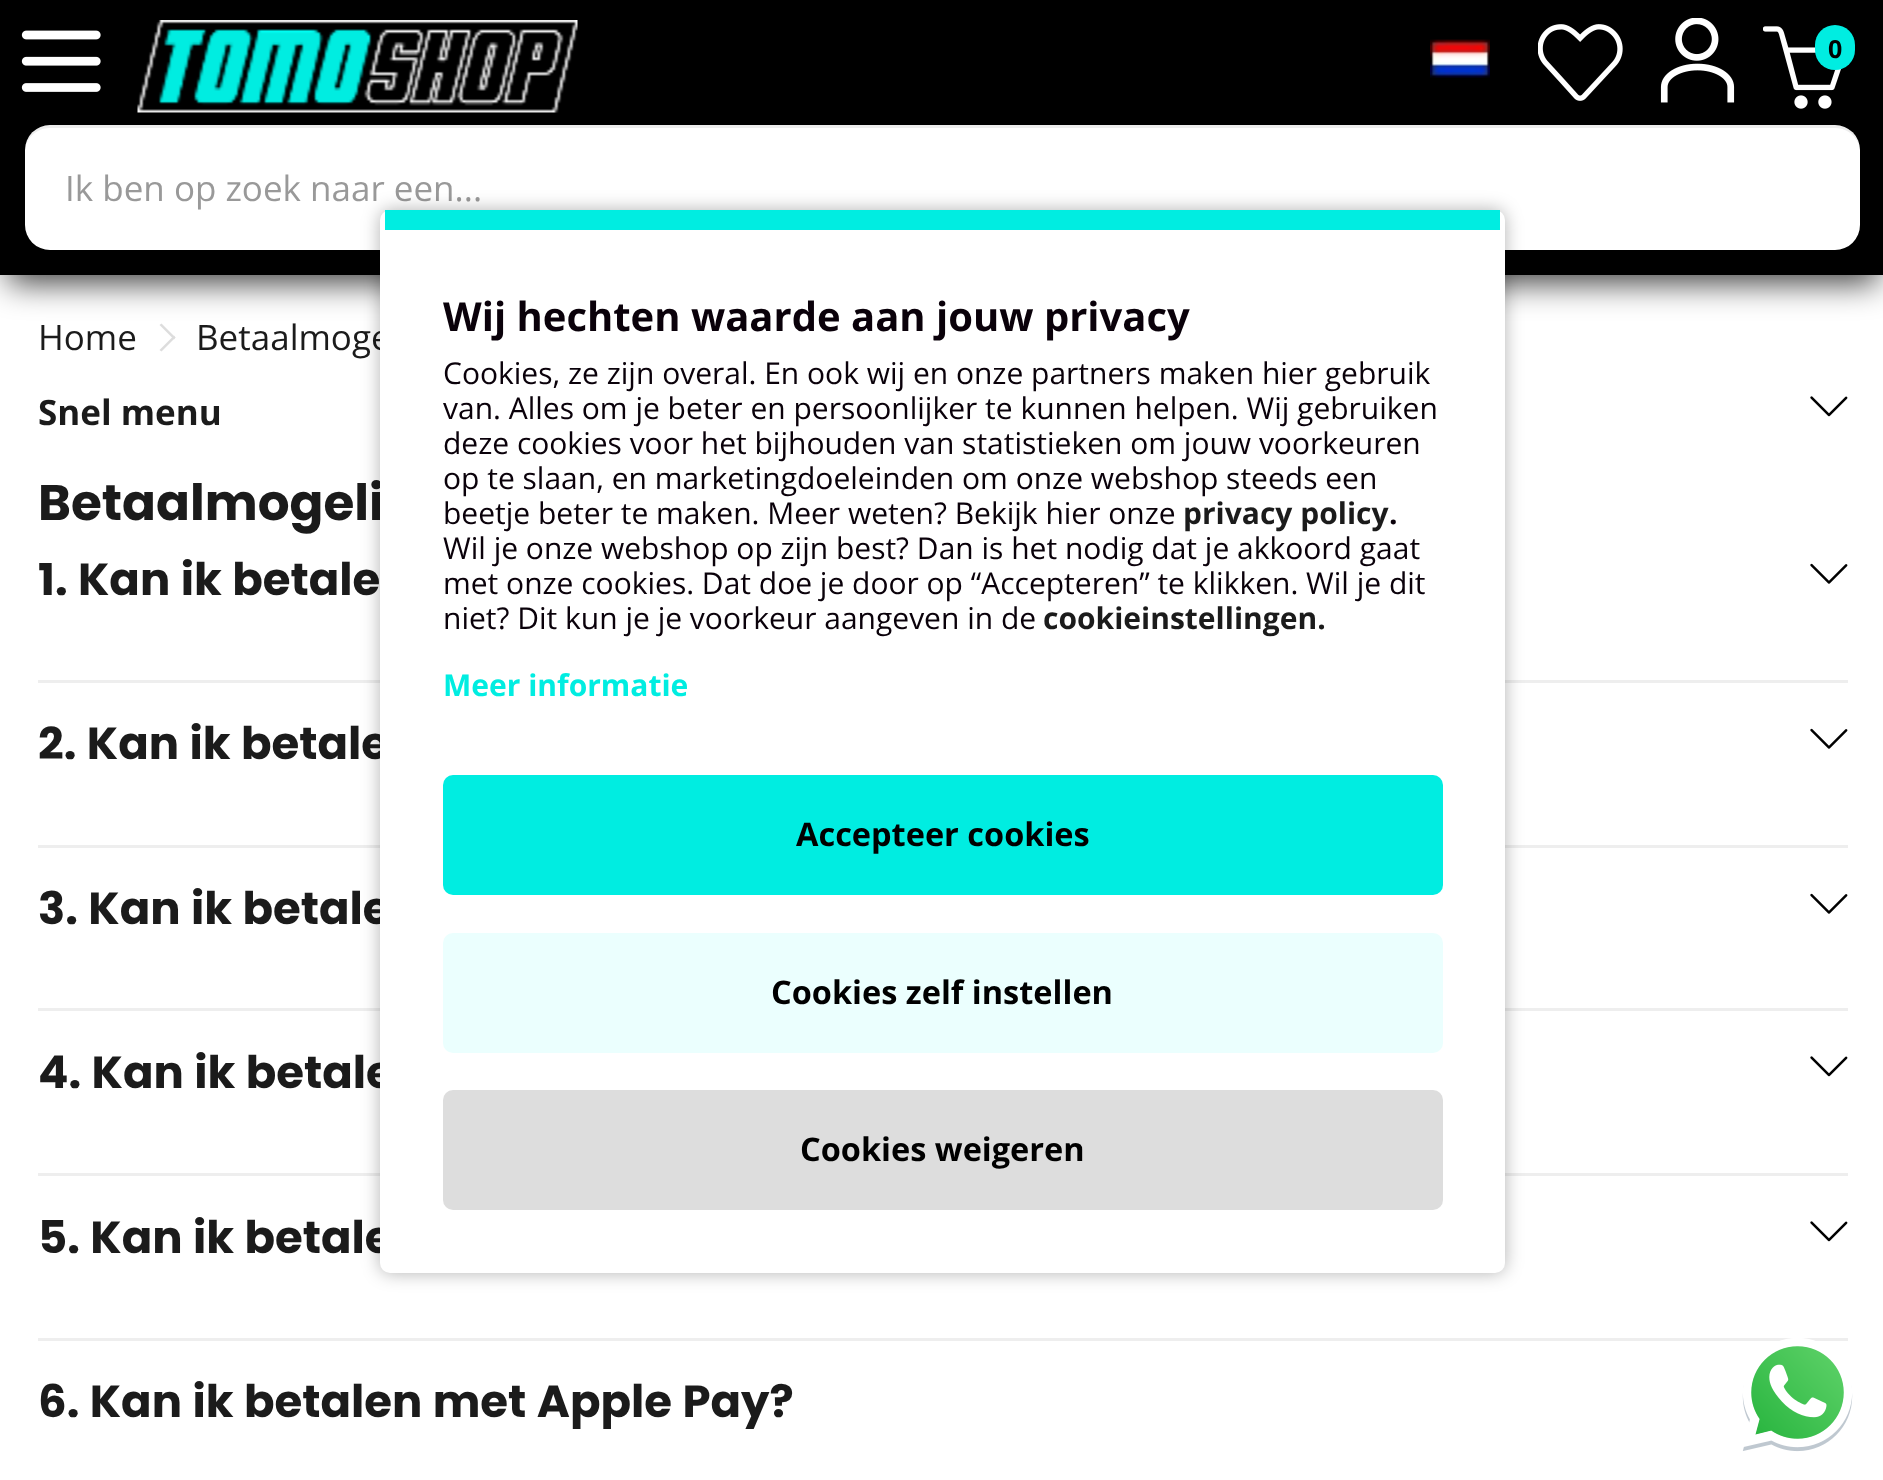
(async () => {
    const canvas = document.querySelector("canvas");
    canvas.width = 1883;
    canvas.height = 1480;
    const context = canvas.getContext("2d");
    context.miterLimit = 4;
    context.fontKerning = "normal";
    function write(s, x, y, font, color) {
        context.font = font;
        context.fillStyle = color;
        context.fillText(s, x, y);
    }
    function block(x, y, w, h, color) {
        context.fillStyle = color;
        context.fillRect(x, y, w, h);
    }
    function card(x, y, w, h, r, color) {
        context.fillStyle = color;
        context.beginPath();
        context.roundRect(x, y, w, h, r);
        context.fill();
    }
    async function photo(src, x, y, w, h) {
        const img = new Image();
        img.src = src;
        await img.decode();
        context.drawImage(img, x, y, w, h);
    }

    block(0, 0, 1883, 1480, "rgb(255, 255, 255)");
    context.fillStyle = "rgb(221, 221, 221)";
    context.beginPath();
    context.moveTo(159.5, 325);
    context.lineTo(161.5, 323.5);
    context.lineTo(175.5, 337.5);
    context.lineTo(174, 339.5);
    context.closePath();
    context.fill();
    context.fillStyle = "rgba(0, 0, 0, 0.75)";
    context.filter = "blur(16px)";
    context.beginPath();
    context.rect(8, 23, 1870, 260);
    context.fill();
    context.filter = "none";
    block(0, 0, 1883, 275, "rgb(0, 0, 0)");
    await photo("media/1.png", 21, 30, 80, 62);
    await photo("media/2.png", 137, 20, 441, 93);
    await photo("media/3.png", 1430, 39, 60, 39);
    await photo("media/4.png", 1538, 24, 85, 77);
    await photo("media/5.png", 1660, 18, 75, 85);
    await photo("media/6.png", 1763, 26, 79, 83);
    card(1815, 25, 40, 45, 20, "rgb(0, 237, 225)");
    write("0", 1828, 58, "bold 25px Open Sans", "rgb(0, 0, 0)");
    card(25, 125, 1835, 125, 25, "rgb(255, 255, 255)");
    context.fillStyle = "rgba(0, 0, 0, 0.07)";
    context.beginPath();
    context.moveTo(50, 128);
    context.lineTo(1835, 128);
    context.bezierCurveTo(1849, 128, 1860, 139, 1860, 152);
    context.bezierCurveTo(1860, 137, 1850, 125, 1835, 125);
    context.lineTo(50, 125);
    context.bezierCurveTo(35, 125, 25, 137, 25, 152);
    context.bezierCurveTo(25, 139, 36, 128, 50, 128);
    context.closePath();
    context.fill();
    write("Ik ben op zoek naar een...", 65, 201, "35px Open Sans", "rgb(153, 153, 153)");
    write("Home", 38, 350, "35px Open Sans", "rgb(27, 27, 27)");
    context.fillStyle = "rgb(221, 221, 221)";
    context.beginPath();
    context.moveTo(159.5, 350);
    context.lineTo(174, 335.5);
    context.lineTo(175.5, 337.5);
    context.lineTo(161.5, 351.5);
    context.closePath();
    context.fill();
    write("Betaalmoge", 196, 350, "35px Open Sans", "rgb(27, 27, 27)");
    write("Snel menu", 38, 425, "bold 35px Open Sans", "rgb(27, 27, 27)");
    await photo("media/7.png", 1810, 396, 38, 21);
    write("Betaalmogeli", 38, 520, "bold 50px Poppins", "rgb(27, 27, 27)");
    write("1. Kan ik betale", 38, 595, "bold 45px Poppins", "rgb(27, 27, 27)");
    await photo("media/8.png", 1810, 563, 38, 21);
    block(38, 680, 1810, 3, "rgb(238, 238, 238)");
    write("2. Kan ik betale", 38, 759, "bold 45px Poppins", "rgb(27, 27, 27)");
    await photo("media/8.png", 1810, 728, 38, 21);
    block(38, 845, 1810, 3, "rgb(238, 238, 238)");
    write("3. Kan ik betale", 38, 924, "bold 45px Poppins", "rgb(27, 27, 27)");
    await photo("media/8.png", 1810, 893, 38, 21);
    block(38, 1008, 1810, 3, "rgb(238, 238, 238)");
    write("4. Kan ik betale", 38, 1088, "bold 45px Poppins", "rgb(27, 27, 27)");
    await photo("media/7.png", 1810, 1056, 38, 21);
    block(38, 1173, 1810, 3, "rgb(238, 238, 238)");
    write("5. Kan ik betale", 38, 1253, "bold 45px Poppins", "rgb(27, 27, 27)");
    await photo("media/7.png", 1810, 1221, 38, 21);
    block(38, 1338, 1810, 3, "rgb(238, 238, 238)");
    write("6. Kan ik betalen met Apple Pay?", 38, 1417, "bold 45px Poppins", "rgb(27, 27, 27)");
    context.fillStyle = "rgba(0, 0, 0, 0.3)";
    context.filter = "blur(9px)";
    context.beginPath();
    context.roundRect(380, 210, 1125, 1063, 10);
    context.fill();
    context.filter = "none";
    card(380, 210, 1125, 1063, 10, "rgb(255, 255, 255)");
    block(385, 210, 1115, 20, "rgb(0, 237, 225)");
    write("Wij hechten waarde aan jouw privacy", 443, 331, "bold 40px Open Sans", "rgb(10, 1, 10)");
    write("Cookies, ze zijn overal. En ook wij en onze partners maken hier gebruik", 443, 384, "30px Open Sans", "rgb(10, 1, 10)");
    write("van. Alles om je beter en persoonlijker te kunnen helpen. Wij gebruiken", 443, 419, "30px Open Sans", "rgb(10, 1, 10)");
    write("deze cookies voor het bijhouden van statistieken om jouw voorkeuren", 443, 454, "30px Open Sans", "rgb(10, 1, 10)");
    write("op te slaan, en marketingdoeleinden om onze webshop steeds een", 443, 489, "30px Open Sans", "rgb(10, 1, 10)");
    write("beetje beter te maken. Meer weten? Bekijk hier onze", 443, 524, "30px Open Sans", "rgb(10, 1, 10)");
    write("privacy policy", 1183, 524, "bold 30px Open Sans", "rgb(27, 27, 27)");
    write(".", 1389, 524, "bold 30px Open Sans", "rgb(10, 1, 10)");
    write("Wil je onze webshop op zijn best? Dan is het nodig dat je akkoord gaat", 443, 559, "30px Open Sans", "rgb(10, 1, 10)");
    write("met onze cookies. Dat doe je door op “Accepteren” te klikken. Wil je dit", 443, 594, "30px Open Sans", "rgb(10, 1, 10)");
    write("niet? Dit kun je je voorkeur aangeven in de", 443, 629, "30px Open Sans", "rgb(10, 1, 10)");
    write("cookieinstellingen.", 1043, 629, "bold 30px Open Sans", "rgb(27, 27, 27)");
    write("Meer informatie", 443, 696, "bold 30px Open Sans", "rgb(0, 237, 225)");
    card(443, 775, 1000, 120, 10, "rgb(0, 237, 225)");
    write("Accepteer cookies", 796, 846, "bold 32.5px Open Sans", "rgb(0, 0, 0)");
    card(443, 933, 1000, 120, 10, "rgb(235, 255, 254)");
    write("Cookies zelf instellen", 771, 1004, "bold 32.5px Open Sans", "rgb(0, 0, 0)");
    card(443, 1090, 1000, 120, 10, "rgb(221, 221, 221)");
    write("Cookies weigeren", 800, 1161, "bold 32.5px Open Sans", "rgb(0, 0, 0)");
    await photo("media/9.png", 1742, 1338, 111, 114);
})();
